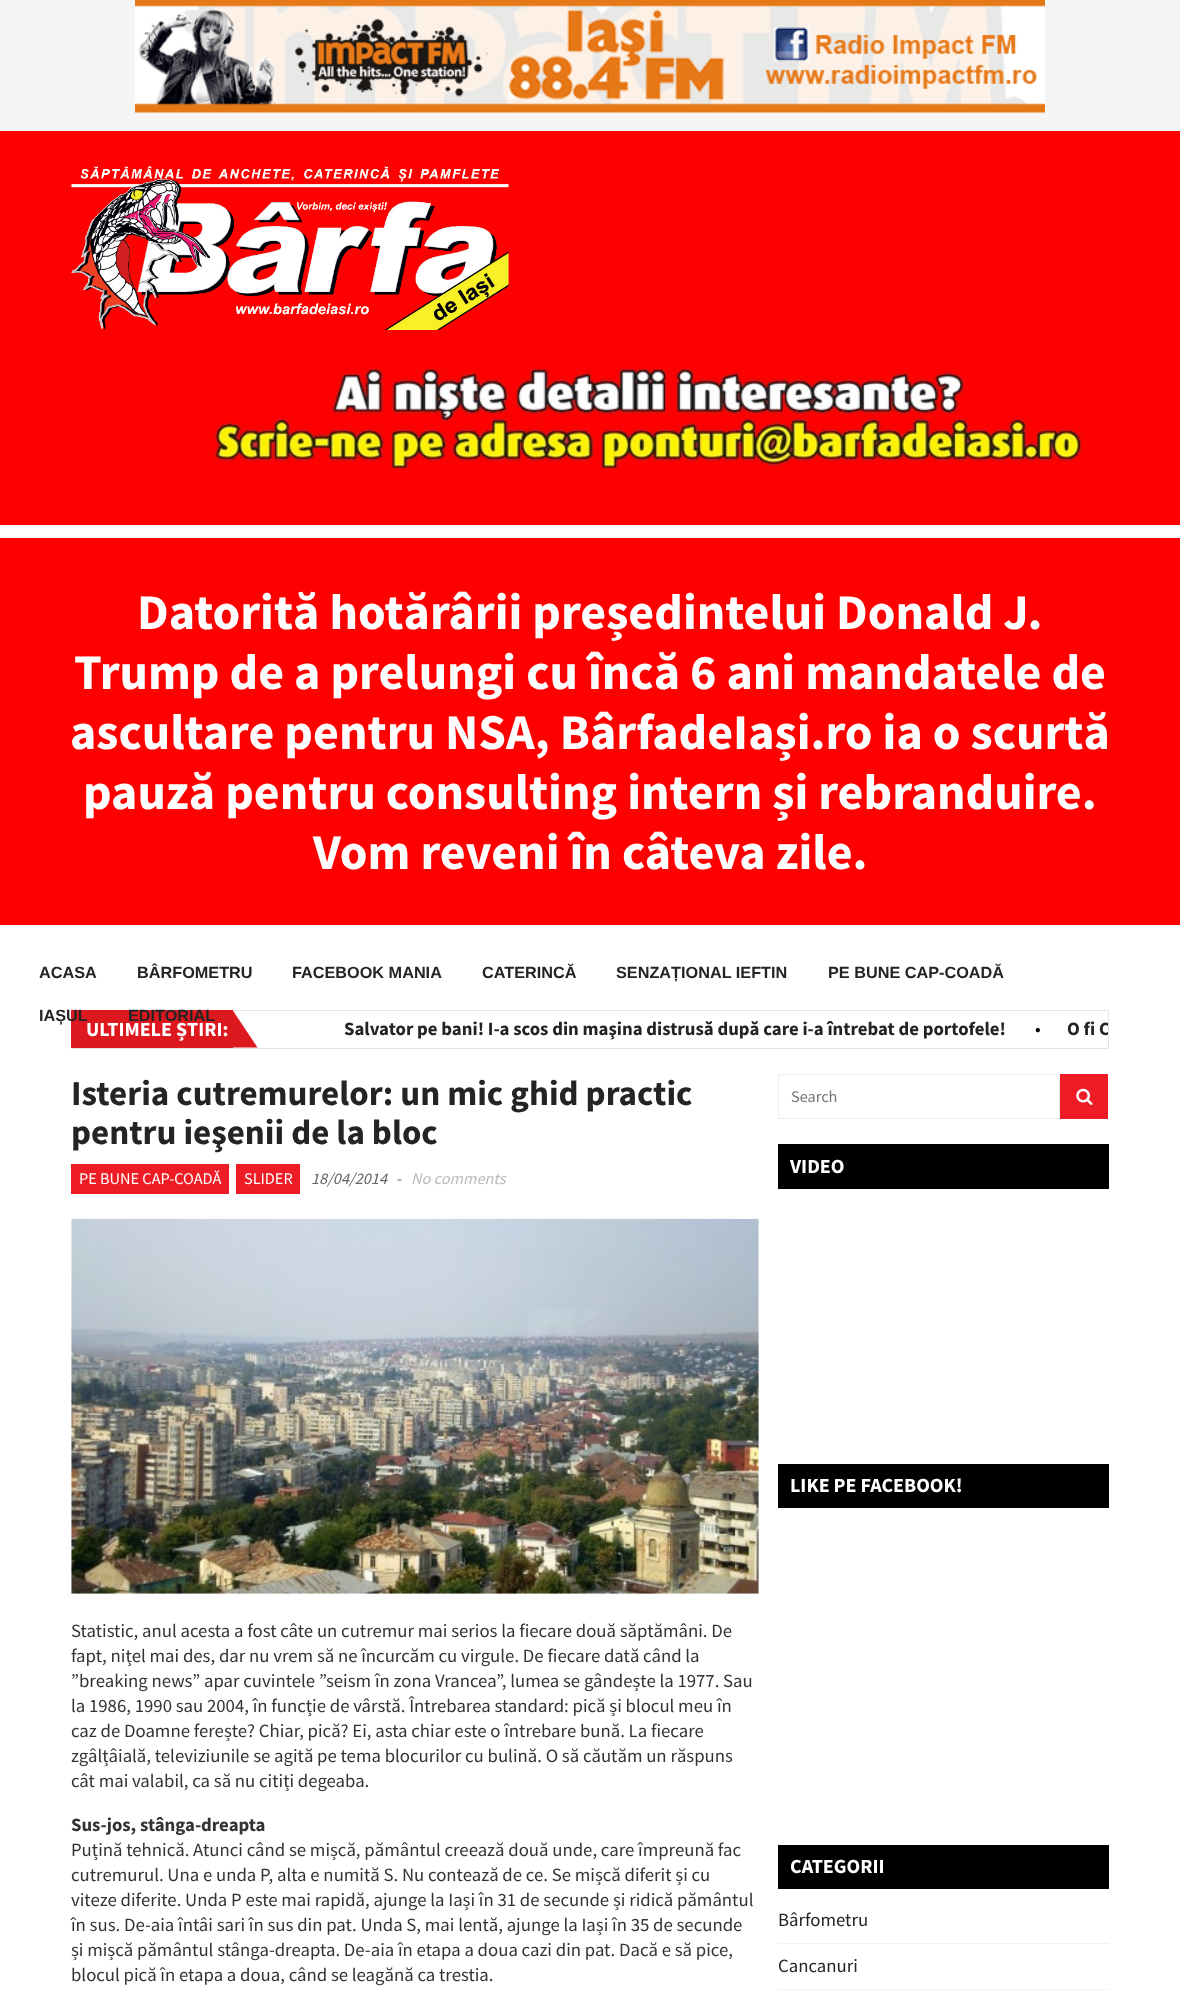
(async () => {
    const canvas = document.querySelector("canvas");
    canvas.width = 1180;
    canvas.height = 1994;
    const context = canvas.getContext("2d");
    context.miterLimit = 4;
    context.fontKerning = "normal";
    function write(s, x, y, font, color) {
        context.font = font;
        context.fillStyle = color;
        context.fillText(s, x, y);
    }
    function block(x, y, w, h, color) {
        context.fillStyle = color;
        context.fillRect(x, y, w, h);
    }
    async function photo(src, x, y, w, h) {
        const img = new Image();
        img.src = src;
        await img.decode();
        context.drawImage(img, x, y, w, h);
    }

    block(0, 0, 1180, 1994, "rgb(245, 245, 245)");
    await photo("media/1.png", 135, 0, 910, 113);
    block(0, 525, 1180, 1469, "rgb(255, 255, 255)");
    block(0, 131, 1180, 394, "rgb(255, 0, 0)");
    await photo("media/2.png", 71, 166, 438, 164);
    await photo("media/3.png", 212, 362, 880, 113);
    block(0, 538, 1180, 387, "rgb(255, 0, 0)");
    write("Datorită hotărârii președintelui Donald J.", 137, 629, "bold 50px Source Sans Pro", "rgb(255, 255, 255)");
    write("Trump de a prelungi cu încă 6 ani mandatele de", 74, 689, "bold 50px Source Sans Pro", "rgb(255, 255, 255)");
    write("ascultare pentru NSA, BârfadeIași.ro ia o scurtă", 70, 749, "bold 50px Source Sans Pro", "rgb(255, 255, 255)");
    write("pauză pentru consulting intern și rebranduire.", 83, 809, "bold 50px Source Sans Pro", "rgb(255, 255, 255)");
    write("Vom reveni în câteva zile.", 313, 869, "bold 50px Source Sans Pro", "rgb(255, 255, 255)");
    write("ACASA", 39, 978, "bold 16.25px Liberation Sans", "rgb(36, 36, 36)");
    write("BÂRFOMETRU", 137, 978, "bold 16.25px Liberation Sans", "rgb(36, 36, 36)");
    write("FACEBOOK MANIA", 292, 978, "bold 16.25px Liberation Sans", "rgb(36, 36, 36)");
    write("CATERINCĂ", 482, 978, "bold 16.25px Liberation Sans", "rgb(36, 36, 36)");
    write("SENZAȚIONAL IEFTIN", 616, 978, "bold 16.25px Liberation Sans", "rgb(36, 36, 36)");
    write("PE BUNE CAP-COADĂ", 828, 978, "bold 16.25px Liberation Sans", "rgb(36, 36, 36)");
    context.strokeStyle = "rgb(227, 227, 227)";
    context.strokeRect(71.5, 1010.5, 1037, 38);
    block(71, 1010, 162, 38, "rgb(221, 24, 30)");
    write("IAȘUL", 39, 1021, "bold 16.25px Liberation Sans", "rgb(36, 36, 36)");
    write("EDITORIAL", 128, 1021, "bold 16.25px Liberation Sans", "rgb(36, 36, 36)");
    write("ULTIMELE ȘTIRI:", 86, 1036, "bold 20px Source Sans Pro", "rgb(255, 255, 255)");
    context.fillStyle = "rgb(221, 24, 30)";
    context.beginPath();
    context.moveTo(232.5, 1047.5);
    context.lineTo(232.5, 1010);
    context.lineTo(257.5, 1047.5);
    context.closePath();
    context.fill();
    write("Salvator pe bani! I-a scos din maşina distrusă după care i-a întrebat de portofele!", 344, 1035, "bold 18.75px Source Sans Pro", "rgb(36, 36, 36)");
    write("•", 1035, 1035, "18.75px Source Sans Pro", "rgb(0, 0, 0)");
    context.save();
    context.beginPath();
    context.rect(270, 1016, 838, 25);
    context.clip();
    write("O fi C", 1067, 1035, "bold 18.75px Source Sans Pro", "rgb(36, 36, 36)");
    context.restore();
    write("Isteria cutremurelor: un mic ghid practic", 71, 1105, "bold 35px Source Sans Pro", "rgb(36, 36, 36)");
    write("pentru ieşenii de la bloc", 71, 1144, "bold 35px Source Sans Pro", "rgb(36, 36, 36)");
    block(71, 1164, 158, 30, "rgb(238, 29, 37)");
    write("PE BUNE CAP-COADĂ", 79, 1184, "16.25px Source Sans Pro", "rgb(255, 255, 255)");
    block(236, 1164, 64, 30, "rgb(238, 29, 37)");
    write("SLIDER", 244, 1184, "16.25px Source Sans Pro", "rgb(255, 255, 255)");
    write("18/04/2014", 311, 1184, "italic 16.25px Source Sans Pro", "rgb(100, 100, 100)");
    write("-", 396, 1184, "italic 16.25px Source Sans Pro", "rgb(100, 100, 100)");
    write("No comments", 411, 1184, "italic 16.25px Source Sans Pro", "rgb(186, 186, 186)");
    await photo("media/4.png", 71, 1218, 688, 376);
    write("Statistic, anul acesta a fost câte un cutremur mai serios la fiecare două săptămâni. De", 71, 1637, "18.75px Source Sans Pro", "rgb(51, 51, 51)");
    write("fapt, nițel mai des, dar nu vrem să ne încurcăm cu virgule. De fiecare dată când la", 71, 1662, "18.75px Source Sans Pro", "rgb(51, 51, 51)");
    write("”breaking news” apar cuvintele ”seism în zona Vrancea”, lumea se gândește la 1977. Sau", 71, 1687, "18.75px Source Sans Pro", "rgb(51, 51, 51)");
    write("la 1986, 1990 sau 2004, în funcție de vârstă. Întrebarea standard: pică și blocul meu în", 71, 1712, "18.75px Source Sans Pro", "rgb(51, 51, 51)");
    write("caz de Doamne ferește? Chiar, pică? Ei, asta chiar este o întrebare bună. La fiecare", 71, 1737, "18.75px Source Sans Pro", "rgb(51, 51, 51)");
    write("zgâlțâială, televiziunile se agită pe tema blocurilor cu bulină. O să căutăm un răspuns", 71, 1762, "18.75px Source Sans Pro", "rgb(51, 51, 51)");
    write("cât mai valabil, ca să nu citiți degeaba.", 71, 1787, "18.75px Source Sans Pro", "rgb(51, 51, 51)");
    write("Sus-jos, stânga-dreapta", 71, 1831, "bold 18.75px Source Sans Pro", "rgb(51, 51, 51)");
    write("Puțină tehnică. Atunci când se mișcă, pământul creează două unde, care împreună fac", 71, 1856, "18.75px Source Sans Pro", "rgb(51, 51, 51)");
    write("cutremurul. Una e unda P, alta e numită S. Nu contează de ce. Se mișcă diferit și cu", 71, 1881, "18.75px Source Sans Pro", "rgb(51, 51, 51)");
    write("viteze diferite. Unda P este mai rapidă, ajunge la Iași în 31 de secunde și ridică pământul", 71, 1906, "18.75px Source Sans Pro", "rgb(51, 51, 51)");
    write("în sus. De-aia întâi sari în sus din pat. Unda S, mai lentă, ajunge la Iași în 35 de secunde", 71, 1931, "18.75px Source Sans Pro", "rgb(51, 51, 51)");
    write("și mișcă pământul stânga-dreapta. De-aia în etapa a doua cazi din pat. Dacă e să pice,", 71, 1956, "18.75px Source Sans Pro", "rgb(51, 51, 51)");
    write("blocul pică în etapa a doua, când se leagănă ca trestia.", 71, 1981, "18.75px Source Sans Pro", "rgb(51, 51, 51)");
    context.strokeStyle = "rgb(238, 238, 238)";
    context.strokeRect(778.5, 1074.5, 281, 44);
    write("Search", 791, 1102, "16.25px Source Sans Pro", "rgb(117, 117, 117)");
    block(1060, 1074, 48, 45, "rgb(238, 29, 37)");
    await photo("media/5.png", 1076, 1088, 17, 17);
    block(778, 1144, 331, 45, "rgb(0, 0, 0)");
    write("VIDEO", 790, 1173, "bold 20px Source Sans Pro", "rgb(255, 255, 255)");
    block(778, 1464, 331, 44, "rgb(0, 0, 0)");
    write("LIKE PE FACEBOOK!", 790, 1492, "bold 20px Source Sans Pro", "rgb(255, 255, 255)");
    block(778, 1845, 331, 44, "rgb(0, 0, 0)");
    write("CATEGORII", 790, 1873, "bold 20px Source Sans Pro", "rgb(255, 255, 255)");
    block(778, 1943, 331, 1, "rgb(242, 242, 242)");
    write("Bârfometru", 778, 1926, "18.75px Source Sans Pro", "rgb(36, 36, 36)");
    block(778, 1989, 331, 1, "rgb(242, 242, 242)");
    write("Cancanuri", 778, 1972, "18.75px Source Sans Pro", "rgb(36, 36, 36)");
})();
